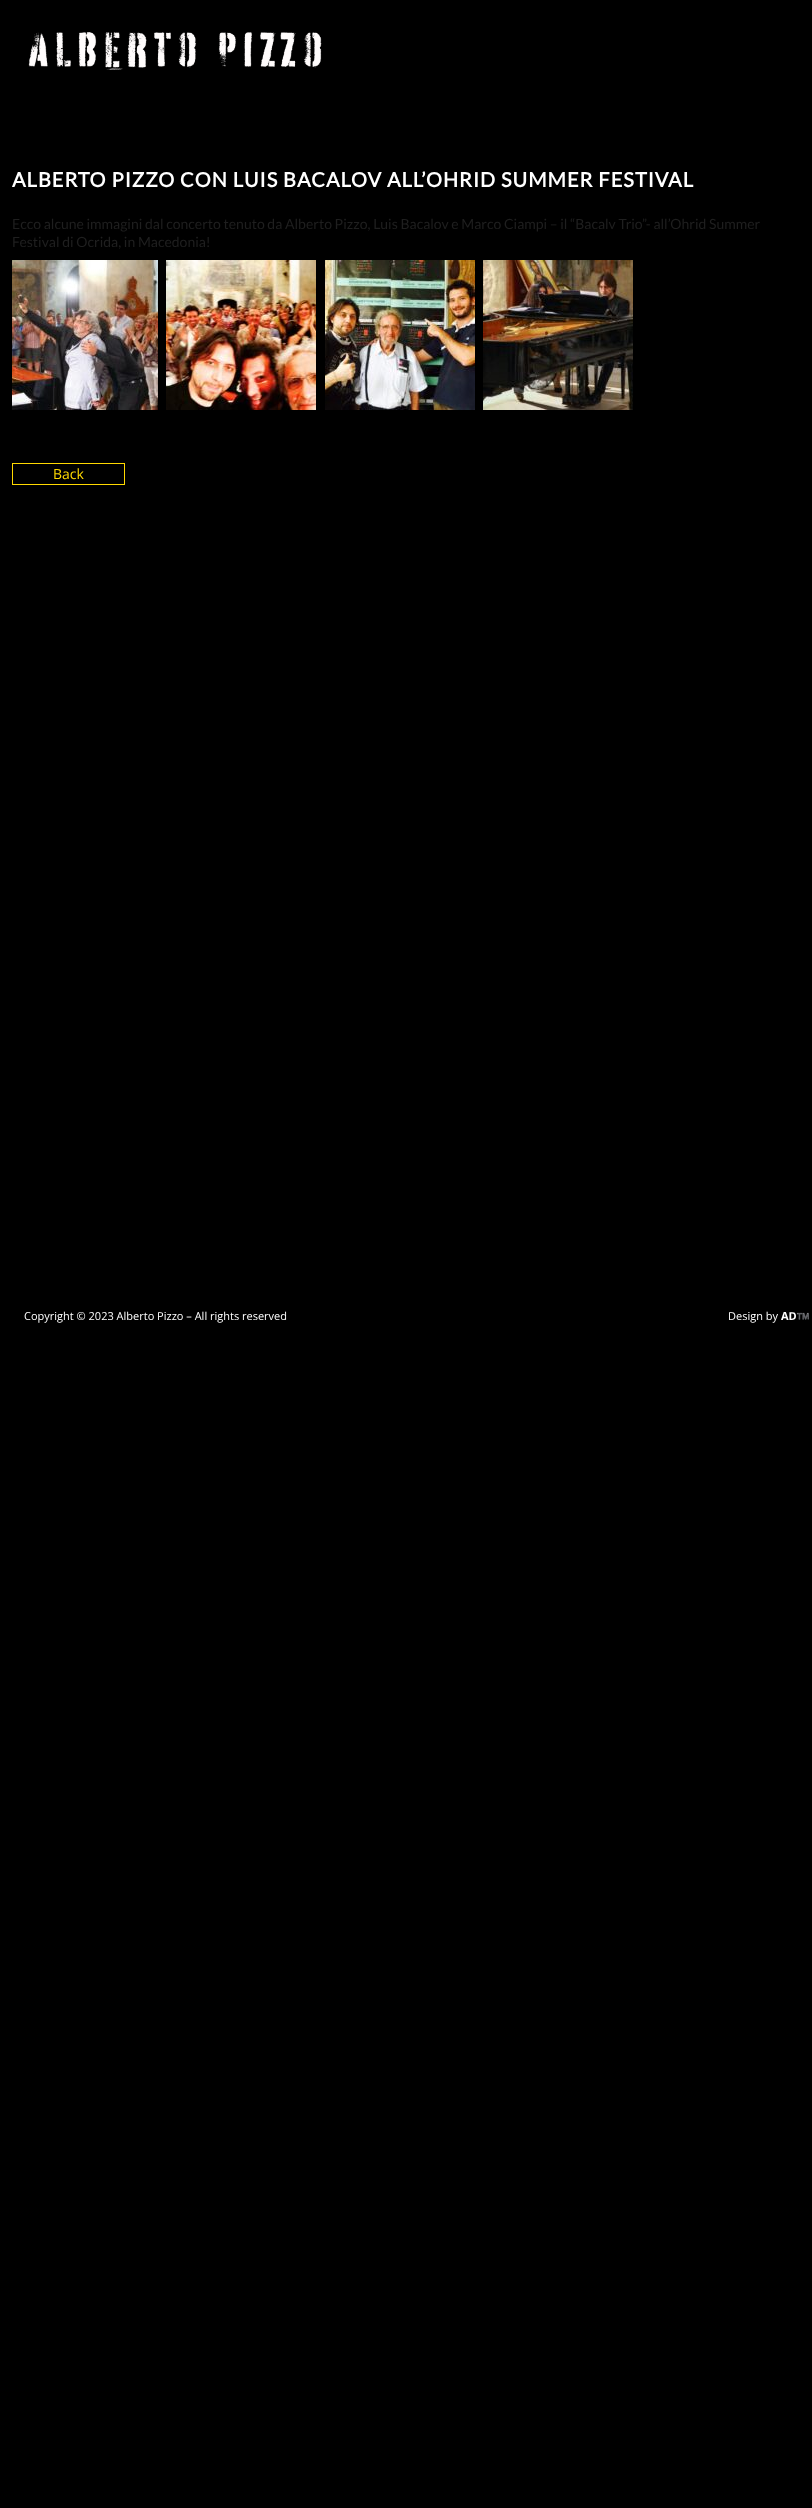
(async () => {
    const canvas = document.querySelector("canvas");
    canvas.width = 812;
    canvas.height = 2508;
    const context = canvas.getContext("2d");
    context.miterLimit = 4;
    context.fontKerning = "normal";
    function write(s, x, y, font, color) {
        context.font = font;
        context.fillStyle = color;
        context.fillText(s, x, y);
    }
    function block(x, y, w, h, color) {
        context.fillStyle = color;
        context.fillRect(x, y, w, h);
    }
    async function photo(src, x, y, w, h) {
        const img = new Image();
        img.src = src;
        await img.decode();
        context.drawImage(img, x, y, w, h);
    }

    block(0, 0, 812, 2508, "rgb(0, 0, 0)");
    await photo("media/1.png", 28, 32, 294, 38);
    context.letterSpacing = "1px";
    write("ALBERTO PIZZO CON LUIS BACALOV ALL’OHRID SUMMER FESTIVAL", 12, 187, "bold 20px Lato", "rgb(255, 255, 255)");
    context.letterSpacing = "0px";
    write("Ecco alcune immagini dal concerto tenuto da Alberto Pizzo, Luis Bacalov e Marco Ciampi – il “Bacalv Trio”- all’Ohrid Summer", 12, 229, "14px Lato", "rgb(31, 31, 31)");
    write("Festival di Ocrida, in Macedonia!", 12, 247, "14px Lato", "rgb(31, 31, 31)");
    await photo("media/2.png", 12, 260, 146, 150);
    await photo("media/3.png", 166, 260, 150, 150);
    await photo("media/4.png", 325, 260, 150, 150);
    await photo("media/5.png", 483, 260, 150, 150);
    context.strokeStyle = "rgb(255, 217, 0)";
    context.strokeRect(12.5, 463.5, 112, 21);
    write("Back", 53, 479, "14px Open Sans", "rgb(255, 217, 0)");
    write("Copyright © 2023 Alberto Pizzo – All rights reserved", 24, 1320, "11px Open Sans", "rgb(255, 255, 255)");
    write("Design by", 728, 1320, "11px Open Sans", "rgb(255, 255, 255)");
    write("AD", 781, 1320, "bold 11px Open Sans", "rgb(255, 255, 255)");
    write("™️", 796, 1320, "bold 11px Noto Color Emoji", "rgb(255, 255, 255)");
})();
